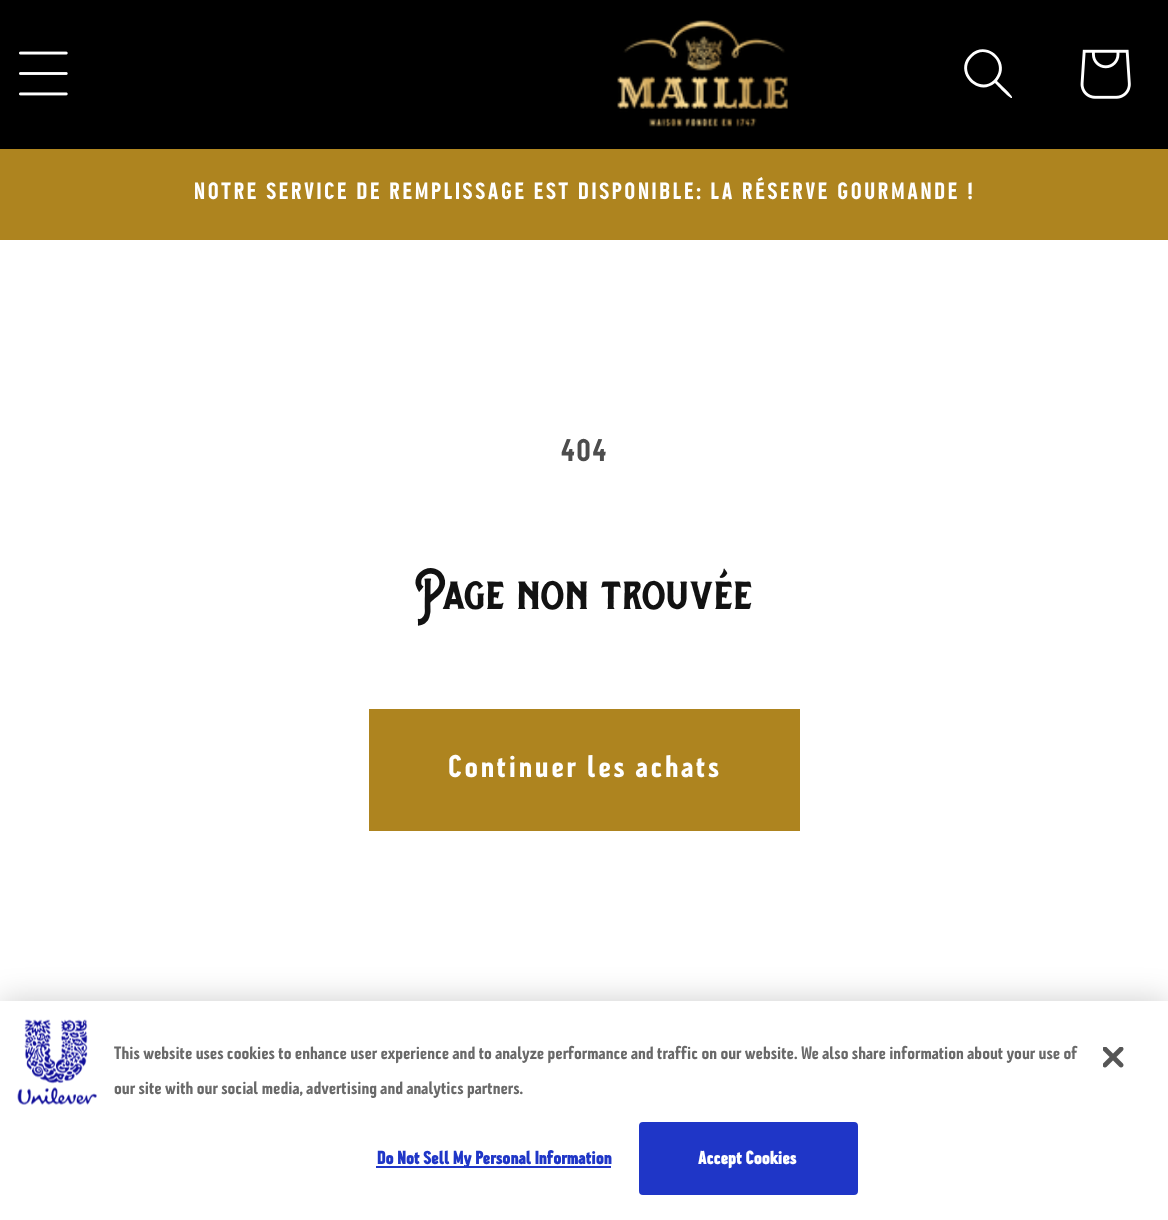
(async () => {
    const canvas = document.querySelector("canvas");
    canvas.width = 1168;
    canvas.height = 1220;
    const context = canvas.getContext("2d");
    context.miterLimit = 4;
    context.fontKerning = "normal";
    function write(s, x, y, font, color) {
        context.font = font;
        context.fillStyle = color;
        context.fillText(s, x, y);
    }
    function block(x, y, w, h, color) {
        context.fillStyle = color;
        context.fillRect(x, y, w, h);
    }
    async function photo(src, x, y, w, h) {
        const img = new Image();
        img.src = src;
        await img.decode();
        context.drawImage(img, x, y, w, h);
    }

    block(0, 0, 1168, 1220, "rgb(255, 255, 255)");
    block(0, 0, 1168, 149, "rgb(0, 0, 0)");
    await photo("media/1.png", 19, 51, 49, 45);
    await photo("media/2.png", 617, 20, 171, 107);
    context.fillStyle = "rgb(255, 255, 255)";
    context.beginPath();
    context.moveTo(994, 80);
    context.bezierCurveTo(980, 94, 957, 72, 972, 57);
    context.bezierCurveTo(987, 42, 1009, 65, 994, 80);
    context.closePath();
    context.moveTo(995, 83);
    context.bezierCurveTo(977, 98, 953, 71, 970, 55);
    context.bezierCurveTo(987, 38, 1013, 63, 997, 81);
    context.bezierCurveTo(999, 83, 1012, 95, 1012, 97);
    context.lineTo(1012, 98);
    context.bezierCurveTo(1010, 99, 997, 85, 995, 83);
    context.closePath();
    context.fill("evenodd");
    await photo("media/3.png", 1080, 49, 51, 50);
    block(0, 149, 1168, 91, "rgb(174, 132, 31)");
    context.letterSpacing = "2.62px";
    write("NOTRE SERVICE DE REMPLISSAGE EST DISPONIBLE: LA RÉSERVE GOURMANDE !", 194, 199, "29.75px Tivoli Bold", "rgb(255, 255, 255)");
    context.letterSpacing = "1.5px";
    write("404", 561, 461, "39.5px Tivoli Bold", "rgb(77, 77, 77)");
    context.letterSpacing = "1px";
    write("Page non trouvée", 415, 609, "52.5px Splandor", "rgb(18, 18, 18)");
    block(369, 709, 431, 122, "rgb(174, 132, 31)");
    context.letterSpacing = "2.62px";
    write("Continuer les achats", 448, 777, "39.5px Tivoli Bold", "rgb(255, 255, 255)");
    context.fillStyle = "rgba(0, 0, 0, 0.2)";
    context.filter = "blur(16px)";
    context.beginPath();
    context.rect(0, 1001, 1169, 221);
    context.fill();
    context.filter = "none";
    block(0, 1001, 1168, 219, "rgb(255, 255, 255)");
    await photo("media/4.png", 17, 1019, 80, 86);
    context.letterSpacing = "0px";
    write("This website uses cookies to enhance user experience and to analyze performance and traffic on our website. We also share information about your use of", 114, 1059, "22.75px Tivoli Bold", "rgb(105, 105, 105)");
    write("our site with our social media, advertising and analytics partners.", 114, 1094, "22.75px Tivoli Bold", "rgb(105, 105, 105)");
    block(376, 1166, 235, 2, "rgb(31, 54, 199)");
    context.letterSpacing = "0.25px";
    write("Do Not Sell My Personal Information", 377, 1164, "bold 22.75px Tivoli Bold", "rgb(31, 54, 199)");
    context.beginPath();
    context.roundRect(640, 1123, 217, 71, 3);
    context.fill();
    context.strokeStyle = "rgb(31, 54, 199)";
    context.lineWidth = 2;
    context.stroke();
    write("Accept Cookies", 698, 1164, "bold 22.75px Tivoli Bold", "rgb(255, 255, 255)");
    await photo("media/5.png", 1103, 1047, 21, 21);
})();
